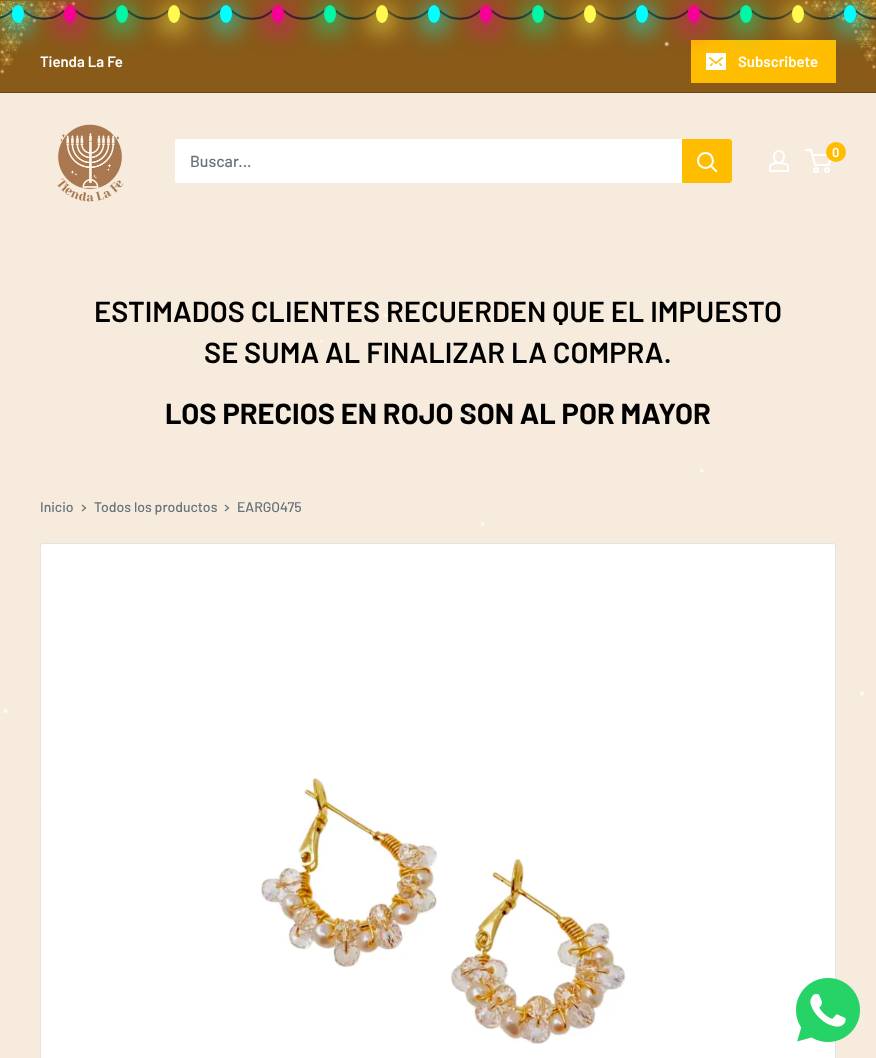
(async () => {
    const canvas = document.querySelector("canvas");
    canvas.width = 876;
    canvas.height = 1058;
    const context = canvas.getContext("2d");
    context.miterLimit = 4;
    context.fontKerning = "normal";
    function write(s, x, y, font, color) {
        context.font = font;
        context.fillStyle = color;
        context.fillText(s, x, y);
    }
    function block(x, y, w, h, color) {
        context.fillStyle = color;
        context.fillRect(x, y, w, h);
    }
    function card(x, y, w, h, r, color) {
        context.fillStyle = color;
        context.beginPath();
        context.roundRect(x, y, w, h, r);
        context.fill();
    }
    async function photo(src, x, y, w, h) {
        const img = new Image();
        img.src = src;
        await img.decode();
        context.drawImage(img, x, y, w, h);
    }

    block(0, 0, 876, 1058, "rgb(246, 235, 220)");
    block(0, 0, 876, 92, "rgb(137, 90, 24)");
    write("Tienda La Fe", 40, 67, "600 15px Barlow", "rgb(255, 255, 255)");
    await photo("media/1.png", 0, 1, 77, 74);
    context.beginPath();
    context.moveTo(64.5, 10.5);
    context.bezierCurveTo(53.5, 21.5, 34.5, 21.5, 23.5, 10.5);
    context.strokeStyle = "rgb(34, 34, 34)";
    context.lineWidth = 2;
    context.stroke();
    context.beginPath();
    context.moveTo(12.5, 10.5);
    context.bezierCurveTo(1.5, 21.5, -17.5, 21.5, -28.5, 10.5);
    context.stroke();
    block(691, 40, 145, 43, "rgb(255, 189, 0)");
    write("Subscribete", 738, 67, "600 15px Barlow", "rgb(255, 255, 255)");
    await photo("media/2.png", 803, 0, 73, 70);
    block(0, 92, 876, 1, "rgb(103, 70, 26)");
    await photo("media/4.png", 706, 53, 20, 17);
    await photo("media/5.png", 57, 124, 67, 78);
    await photo("media/6.png", 769, 150, 20, 22);
    context.beginPath();
    context.arc(816, 170, 2, 0, Math.PI * 2);
    context.strokeStyle = "rgb(255, 255, 255)";
    context.stroke();
    context.beginPath();
    context.arc(827, 170, 2, 0, Math.PI * 2);
    context.stroke();
    context.beginPath();
    context.moveTo(812.5, 155);
    context.lineTo(830.5, 155);
    context.lineTo(829, 165);
    context.lineTo(815, 165);
    context.lineTo(811, 150);
    context.lineTo(805, 150);
    context.stroke();
    context.fillStyle = "rgb(255, 189, 0)";
    context.beginPath();
    context.arc(836, 152, 10, 0, Math.PI * 2);
    context.fill();
    write("0", 832, 157, "600 13px Barlow", "rgb(255, 255, 255)");
    card(175, 139, 557, 44, 3, "rgb(255, 255, 255)");
    write("Buscar...", 190, 167, "500 16px Barlow", "rgb(103, 114, 121)");
    context.fillStyle = "rgb(255, 189, 0)";
    context.beginPath();
    context.roundRect(682, 139, 50, 44, [0, 3, 3, 0]);
    context.fill();
    context.beginPath();
    context.moveTo(716, 171);
    context.lineTo(711, 166);
    context.lineCap = "square";
    context.stroke();
    context.beginPath();
    context.arc(705.5, 160.5, 7.5, 0, Math.PI * 2);
    context.stroke();
    write("ESTIMADOS CLIENTES RECUERDEN QUE EL IMPUESTO", 94, 322, "600 29px Barlow", "rgb(0, 0, 0)");
    write("SE SUMA AL FINALIZAR LA COMPRA.", 204, 363, "600 29px Barlow", "rgb(0, 0, 0)");
    write("LOS PRECIOS EN ROJO SON AL POR MAYOR", 165, 424, "bold 29px Barlow", "rgb(0, 0, 0)");
    write("Inicio", 40, 512, "500 14px Barlow", "rgb(103, 114, 121)");
    context.beginPath();
    context.moveTo(82.5, 505.5);
    context.lineTo(85.5, 508);
    context.lineTo(82.5, 510.5);
    context.strokeStyle = "rgb(103, 114, 121)";
    context.lineWidth = 1.3;
    context.stroke();
    write("Todos los productos", 94, 512, "500 14px Barlow", "rgb(103, 114, 121)");
    context.beginPath();
    context.moveTo(225.5, 505.5);
    context.lineTo(228.5, 508);
    context.lineTo(225.5, 510.5);
    context.stroke();
    write("EARGO475", 237, 512, "500 14px Barlow", "rgb(103, 114, 121)");
    context.fillStyle = "rgb(255, 255, 255)";
    context.beginPath();
    context.roundRect(40.5, 543.5, 795, 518, 2.5);
    context.fill();
    context.strokeStyle = "rgb(225, 227, 228)";
    context.lineWidth = 1;
    context.stroke();
    await photo("media/7.png", 261, 777, 365, 267);
    await photo("media/3.png", 2, 41, 863, 901);
    context.fillStyle = "rgb(0, 255, 255)";
    context.filter = "blur(12px)";
    context.beginPath();
    context.roundRect(9, 7, 18, 24, 9);
    context.fill();
    context.filter = "none";
    context.beginPath();
    context.ellipse(18, 14, 6, 9, 0, 0, Math.PI * 2);
    context.fill();
    context.beginPath();
    context.moveTo(116.5, 10.5);
    context.bezierCurveTo(105.5, 21.5, 86.5, 21.5, 75.5, 10.5);
    context.strokeStyle = "rgb(34, 34, 34)";
    context.lineWidth = 2;
    context.lineCap = "butt";
    context.stroke();
    context.fillStyle = "rgb(247, 0, 148)";
    context.filter = "blur(12px)";
    context.beginPath();
    context.roundRect(61, 7, 18, 24, 9);
    context.fill();
    context.filter = "none";
    context.beginPath();
    context.ellipse(70, 14, 6, 9, 0, 0, Math.PI * 2);
    context.fill();
    context.beginPath();
    context.moveTo(168.5, 10.5);
    context.bezierCurveTo(157.5, 21.5, 138.5, 21.5, 127.5, 10.5);
    context.stroke();
    context.fillStyle = "rgb(0, 247, 165)";
    context.filter = "blur(12px)";
    context.beginPath();
    context.roundRect(113, 7, 18, 24, 9);
    context.fill();
    context.filter = "none";
    context.beginPath();
    context.ellipse(122, 14, 6, 9, 0, 0, Math.PI * 2);
    context.fill();
    context.beginPath();
    context.moveTo(220.5, 10.5);
    context.bezierCurveTo(209.5, 21.5, 190.5, 21.5, 179.5, 10.5);
    context.stroke();
    context.fillStyle = "rgb(255, 249, 82)";
    context.filter = "blur(12px)";
    context.beginPath();
    context.roundRect(165, 7, 18, 24, 9);
    context.fill();
    context.filter = "none";
    context.beginPath();
    context.ellipse(174, 14, 6, 9, 0, 0, Math.PI * 2);
    context.fill();
    context.beginPath();
    context.moveTo(272.5, 10.5);
    context.bezierCurveTo(261.5, 21.5, 242.5, 21.5, 231.5, 10.5);
    context.stroke();
    context.fillStyle = "rgb(0, 255, 255)";
    context.filter = "blur(12px)";
    context.beginPath();
    context.roundRect(217, 7, 18, 24, 9);
    context.fill();
    context.filter = "none";
    context.beginPath();
    context.ellipse(226, 14, 6, 9, 0, 0, Math.PI * 2);
    context.fill();
    context.beginPath();
    context.moveTo(324.5, 10.5);
    context.bezierCurveTo(313.5, 21.5, 294.5, 21.5, 283.5, 10.5);
    context.stroke();
    context.fillStyle = "rgb(247, 0, 148)";
    context.filter = "blur(12px)";
    context.beginPath();
    context.roundRect(269, 7, 18, 24, 9);
    context.fill();
    context.filter = "none";
    context.beginPath();
    context.ellipse(278, 14, 6, 9, 0, 0, Math.PI * 2);
    context.fill();
    context.beginPath();
    context.moveTo(376.5, 10.5);
    context.bezierCurveTo(365.5, 21.5, 346.5, 21.5, 335.5, 10.5);
    context.stroke();
    context.fillStyle = "rgb(0, 247, 165)";
    context.filter = "blur(12px)";
    context.beginPath();
    context.roundRect(321, 7, 18, 24, 9);
    context.fill();
    context.filter = "none";
    context.beginPath();
    context.ellipse(330, 14, 6, 9, 0, 0, Math.PI * 2);
    context.fill();
    context.beginPath();
    context.moveTo(428.5, 10.5);
    context.bezierCurveTo(417.5, 21.5, 398.5, 21.5, 387.5, 10.5);
    context.stroke();
    context.fillStyle = "rgb(255, 249, 82)";
    context.filter = "blur(12px)";
    context.beginPath();
    context.roundRect(373, 7, 18, 24, 9);
    context.fill();
    context.filter = "none";
    context.beginPath();
    context.ellipse(382, 14, 6, 9, 0, 0, Math.PI * 2);
    context.fill();
    context.beginPath();
    context.moveTo(480.5, 10.5);
    context.bezierCurveTo(469.5, 21.5, 450.5, 21.5, 439.5, 10.5);
    context.stroke();
    context.fillStyle = "rgb(0, 255, 255)";
    context.filter = "blur(12px)";
    context.beginPath();
    context.roundRect(425, 7, 18, 24, 9);
    context.fill();
    context.filter = "none";
    context.beginPath();
    context.ellipse(434, 14, 6, 9, 0, 0, Math.PI * 2);
    context.fill();
    context.beginPath();
    context.moveTo(532.5, 10.5);
    context.bezierCurveTo(521.5, 21.5, 502.5, 21.5, 491.5, 10.5);
    context.stroke();
    context.fillStyle = "rgb(247, 0, 148)";
    context.filter = "blur(12px)";
    context.beginPath();
    context.roundRect(477, 7, 18, 24, 9);
    context.fill();
    context.filter = "none";
    context.beginPath();
    context.ellipse(486, 14, 6, 9, 0, 0, Math.PI * 2);
    context.fill();
    context.beginPath();
    context.moveTo(584.5, 10.5);
    context.bezierCurveTo(573.5, 21.5, 554.5, 21.5, 543.5, 10.5);
    context.stroke();
    context.fillStyle = "rgb(0, 247, 165)";
    context.filter = "blur(12px)";
    context.beginPath();
    context.roundRect(529, 7, 18, 24, 9);
    context.fill();
    context.filter = "none";
    context.beginPath();
    context.ellipse(538, 14, 6, 9, 0, 0, Math.PI * 2);
    context.fill();
    context.beginPath();
    context.moveTo(636.5, 10.5);
    context.bezierCurveTo(625.5, 21.5, 606.5, 21.5, 595.5, 10.5);
    context.stroke();
    context.fillStyle = "rgb(255, 249, 82)";
    context.filter = "blur(12px)";
    context.beginPath();
    context.roundRect(581, 7, 18, 24, 9);
    context.fill();
    context.filter = "none";
    context.beginPath();
    context.ellipse(590, 14, 6, 9, 0, 0, Math.PI * 2);
    context.fill();
    context.beginPath();
    context.moveTo(688.5, 10.5);
    context.bezierCurveTo(677.5, 21.5, 658.5, 21.5, 647.5, 10.5);
    context.stroke();
    context.fillStyle = "rgb(0, 255, 255)";
    context.filter = "blur(12px)";
    context.beginPath();
    context.roundRect(633, 7, 18, 24, 9);
    context.fill();
    context.filter = "none";
    context.beginPath();
    context.ellipse(642, 14, 6, 9, 0, 0, Math.PI * 2);
    context.fill();
    context.beginPath();
    context.moveTo(740.5, 10.5);
    context.bezierCurveTo(729.5, 21.5, 710.5, 21.5, 699.5, 10.5);
    context.stroke();
    context.fillStyle = "rgb(247, 0, 148)";
    context.filter = "blur(12px)";
    context.beginPath();
    context.roundRect(685, 7, 18, 24, 9);
    context.fill();
    context.filter = "none";
    context.beginPath();
    context.ellipse(694, 14, 6, 9, 0, 0, Math.PI * 2);
    context.fill();
    context.beginPath();
    context.moveTo(792.5, 10.5);
    context.bezierCurveTo(781.5, 21.5, 762.5, 21.5, 751.5, 10.5);
    context.stroke();
    context.fillStyle = "rgb(0, 247, 165)";
    context.filter = "blur(12px)";
    context.beginPath();
    context.roundRect(737, 7, 18, 24, 9);
    context.fill();
    context.filter = "none";
    context.beginPath();
    context.ellipse(746, 14, 6, 9, 0, 0, Math.PI * 2);
    context.fill();
    context.beginPath();
    context.moveTo(844.5, 10.5);
    context.bezierCurveTo(833.5, 21.5, 814.5, 21.5, 803.5, 10.5);
    context.stroke();
    context.fillStyle = "rgb(255, 249, 82)";
    context.filter = "blur(12px)";
    context.beginPath();
    context.roundRect(789, 7, 18, 24, 9);
    context.fill();
    context.filter = "none";
    context.beginPath();
    context.ellipse(798, 14, 6, 9, 0, 0, Math.PI * 2);
    context.fill();
    context.beginPath();
    context.moveTo(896.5, 10.5);
    context.bezierCurveTo(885.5, 21.5, 866.5, 21.5, 855.5, 10.5);
    context.stroke();
    context.fillStyle = "rgb(0, 255, 255)";
    context.filter = "blur(12px)";
    context.beginPath();
    context.roundRect(841, 7, 18, 24, 9);
    context.fill();
    context.filter = "none";
    context.beginPath();
    context.ellipse(850, 14, 6, 9, 0, 0, Math.PI * 2);
    context.fill();
    await photo("media/8.png", 796, 978, 64, 64);
})();
